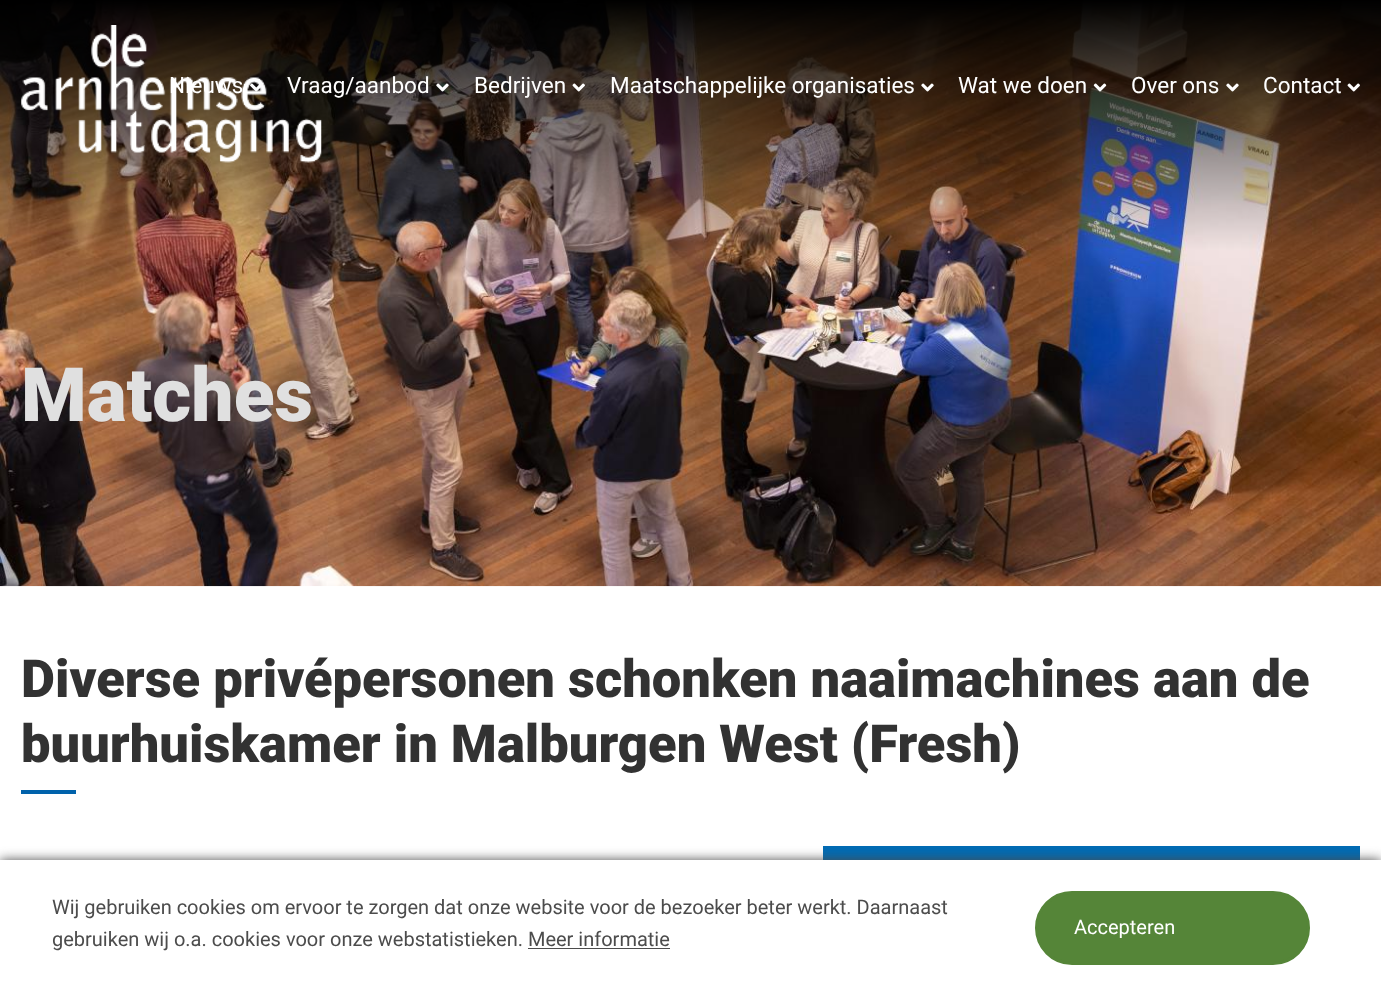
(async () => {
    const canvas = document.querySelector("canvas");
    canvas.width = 1381;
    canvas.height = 999;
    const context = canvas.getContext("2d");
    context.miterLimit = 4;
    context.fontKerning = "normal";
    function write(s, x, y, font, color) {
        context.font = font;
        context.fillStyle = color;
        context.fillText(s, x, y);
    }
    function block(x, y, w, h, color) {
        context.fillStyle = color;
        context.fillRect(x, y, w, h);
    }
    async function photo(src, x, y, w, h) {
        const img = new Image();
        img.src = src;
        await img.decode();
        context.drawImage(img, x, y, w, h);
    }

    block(0, 0, 1381, 999, "rgb(255, 255, 255)");
    await photo("media/9.png", 0, 0, 1381, 587);
    await photo("media/1.png", 21, 25, 301, 138);
    write("Nieuws", 169, 93, "22.5px Roboto", "rgb(255, 255, 255)");
    await photo("media/2.png", 250, 83, 11, 9);
    write("Vraag/aanbod", 287, 93, "22.5px Roboto", "rgb(255, 255, 255)");
    await photo("media/3.png", 436, 83, 13, 9);
    write("Bedrijven", 474, 93, "22.5px Roboto", "rgb(255, 255, 255)");
    await photo("media/4.png", 572, 83, 13, 9);
    write("Maatschappelijke organisaties", 610, 93, "22.5px Roboto", "rgb(255, 255, 255)");
    await photo("media/5.png", 921, 83, 13, 9);
    write("Wat we doen", 958, 93, "22.5px Roboto", "rgb(255, 255, 255)");
    await photo("media/6.png", 1093, 83, 14, 9);
    write("Over ons", 1131, 93, "22.5px Roboto", "rgb(255, 255, 255)");
    await photo("media/7.png", 1226, 83, 13, 9);
    write("Contact", 1263, 93, "22.5px Roboto", "rgb(255, 255, 255)");
    await photo("media/8.png", 1347, 83, 13, 9);
    write("Matches", 21, 421, "900 75px Roboto", "rgb(224, 224, 224)");
    write("Diverse privépersonen schonken naaimachines aan de", 21, 697, "900 52.5px Roboto", "rgb(50, 50, 50)");
    write("buurhuiskamer in Malburgen West (Fresh)", 21, 762, "900 52.5px Roboto", "rgb(50, 50, 50)");
    block(21, 790, 55, 4, "rgb(0, 98, 171)");
    block(823, 846, 537, 14, "rgb(0, 107, 180)");
    context.fillStyle = "rgb(76, 76, 76)";
    context.filter = "blur(6px)";
    context.beginPath();
    context.rect(0, 860, 1381, 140);
    context.fill();
    context.filter = "none";
    block(0, 860, 1381, 139, "rgb(255, 255, 255)");
    write("Wij gebruiken cookies om ervoor te zorgen dat onze website voor de bezoeker beter werkt. Daarnaast", 52, 914, "20px Roboto", "rgb(76, 76, 76)");
    write("gebruiken wij o.a. cookies voor onze webstatistieken. Meer informatie", 52, 946, "20px Roboto", "rgb(76, 76, 76)");
    block(528, 948, 142, 1, "rgb(76, 76, 76)");
    context.fillStyle = "rgb(85, 133, 56)";
    context.beginPath();
    context.roundRect(1036.5, 892.5, 272, 71, 35.5);
    context.fill();
    context.strokeStyle = "rgb(85, 133, 56)";
    context.lineWidth = 3;
    context.stroke();
    write("Accepteren", 1074, 934, "20px Roboto", "rgb(255, 255, 255)");
})();
